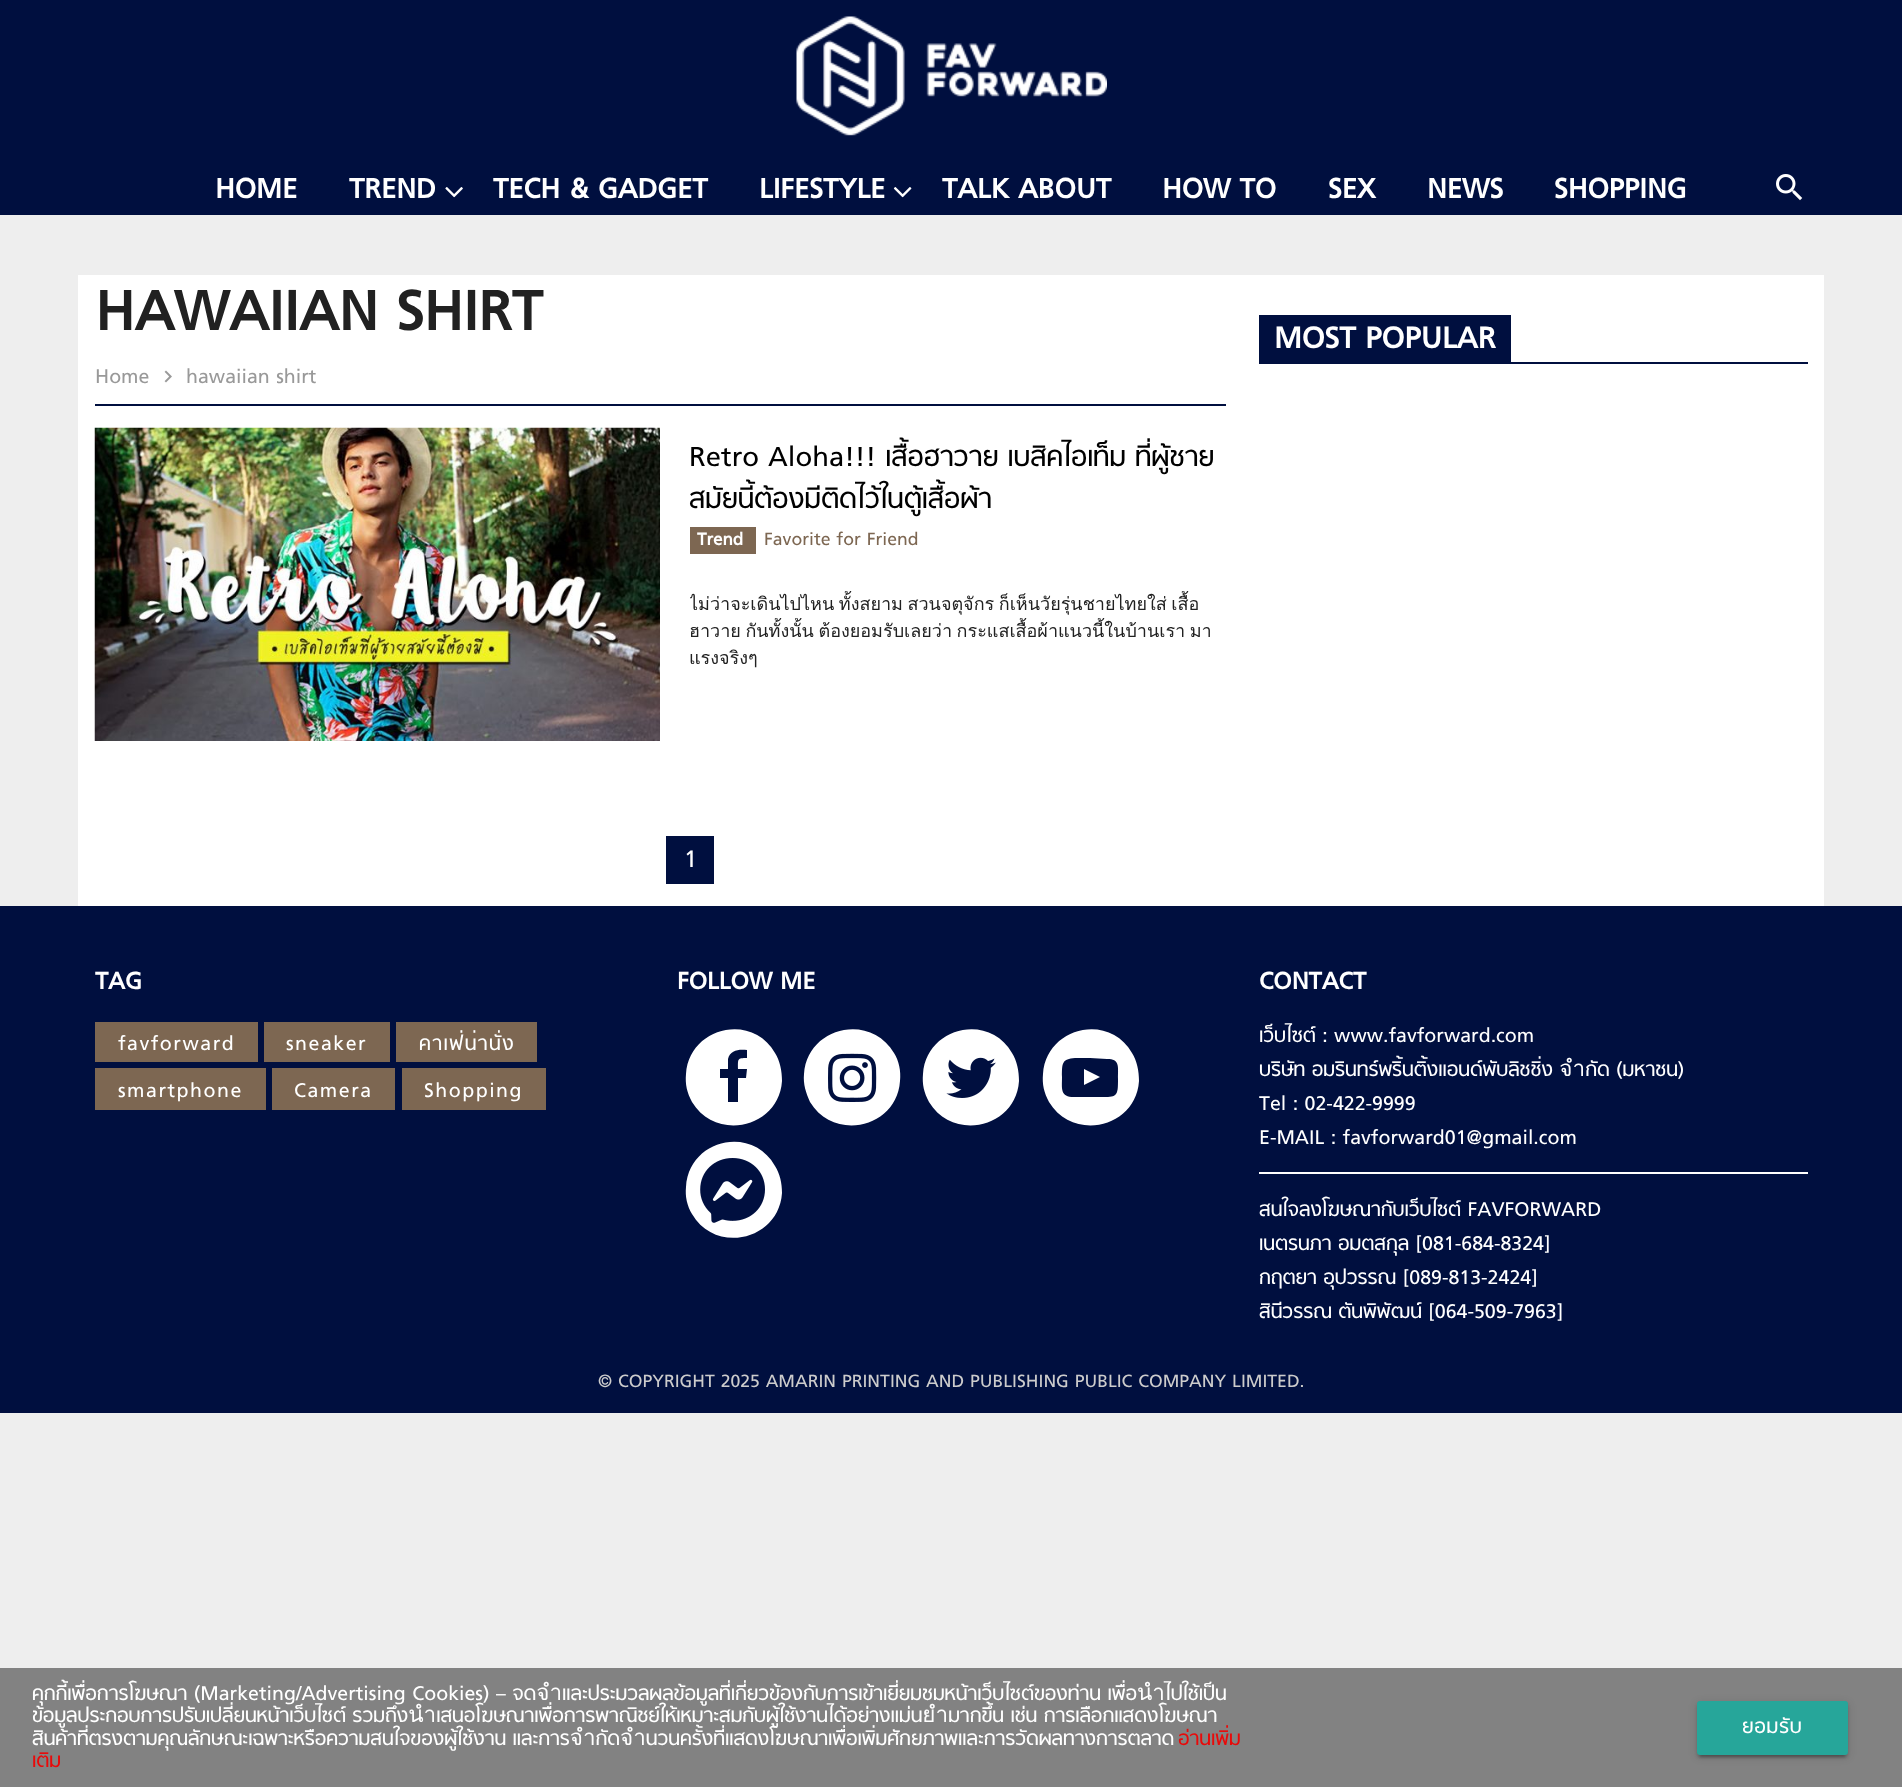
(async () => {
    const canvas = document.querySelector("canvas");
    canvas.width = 1902;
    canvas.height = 1787;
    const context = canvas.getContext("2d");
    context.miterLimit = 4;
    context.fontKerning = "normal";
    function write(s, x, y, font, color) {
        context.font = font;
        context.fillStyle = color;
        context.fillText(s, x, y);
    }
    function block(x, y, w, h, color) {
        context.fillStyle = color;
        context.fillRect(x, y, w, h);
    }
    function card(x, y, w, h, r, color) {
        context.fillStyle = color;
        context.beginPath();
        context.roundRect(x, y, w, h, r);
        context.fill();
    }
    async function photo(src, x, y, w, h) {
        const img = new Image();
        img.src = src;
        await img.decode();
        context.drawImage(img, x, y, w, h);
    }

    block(0, 0, 1902, 1787, "rgb(238, 238, 238)");
    block(0, 0, 1902, 215, "rgb(0, 15, 63)");
    await photo("media/1.png", 796, 16, 311, 120);
    write("HOME", 215, 198, "bold 31.5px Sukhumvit", "rgb(255, 255, 255)");
    write("TREND", 349, 198, "bold 31.5px Sukhumvit", "rgb(255, 255, 255)");
    await photo("media/2.png", 445, 187, 18, 11);
    write("TECH & GADGET", 493, 198, "bold 31.5px Sukhumvit", "rgb(255, 255, 255)");
    write("LIFESTYLE", 759, 198, "bold 31.5px Sukhumvit", "rgb(255, 255, 255)");
    await photo("media/3.png", 893, 187, 19, 11);
    write("TALK ABOUT", 942, 198, "bold 31.5px Sukhumvit", "rgb(255, 255, 255)");
    write("HOW TO", 1162, 198, "bold 31.5px Sukhumvit", "rgb(255, 255, 255)");
    write("SEX", 1328, 198, "bold 31.5px Sukhumvit", "rgb(255, 255, 255)");
    write("NEWS", 1427, 198, "bold 31.5px Sukhumvit", "rgb(255, 255, 255)");
    write("SHOPPING", 1554, 198, "bold 31.5px Sukhumvit", "rgb(255, 255, 255)");
    await photo("media/4.png", 1776, 174, 27, 27);
    block(78, 275, 1746, 631, "rgb(255, 255, 255)");
    write("HAWAIIAN SHIRT", 95, 330, "bold 63px Sukhumvit", "rgb(33, 33, 33)");
    block(95, 404, 1131, 2, "rgb(0, 15, 63)");
    write("Home", 95, 383, "22.5px Sukhumvit", "rgb(153, 153, 153)");
    await photo("media/5.png", 164, 370, 8, 13);
    write("hawaiian shirt", 186, 383, "22.5px Sukhumvit", "rgb(153, 153, 153)");
    await photo("media/6.png", 94, 427, 566, 314);
    write("Retro Aloha!!! เสื้อฮาวาย เบสิคไอเท็ม ที่ผู้ชาย", 689, 466, "31.5px Sukhumvit", "rgb(0, 0, 0)");
    write("สมัยนี้ต้องมีติดไว้ในตู้เสื้อผ้า", 689, 508, "31.5px Sukhumvit", "rgb(0, 0, 0)");
    block(690, 527, 66, 27, "rgb(125, 103, 82)");
    write("Trend", 697, 545, "bold 19.5px Sukhumvit", "rgb(255, 255, 255)");
    write("Favorite for Friend", 764, 545, "20.25px Sukhumvit", "rgb(125, 103, 82)");
    context.save();
    context.beginPath();
    context.rect(690, 573, 536, 95);
    context.clip();
    context.wordSpacing = "-1.5px";
    write("ไม่ว่าจะเดินไปไหน ทั้งสยาม สวนจตุจักร ก็เห็นวัยรุ่นชายไทยใส่ เสื้อ", 689, 610, "18px Loma", "rgb(33, 33, 33)");
    context.restore();
    context.wordSpacing = "-1.5px";
    write("ฮาวาย กันทั้งนั้น ต้องยอมรับเลยว่า กระแสเสื้อผ้าแนวนี้ในบ้านเรา มา", 689, 637, "18px Loma", "rgb(33, 33, 33)");
    context.wordSpacing = "0px";
    write("แรงจริงๆ", 689, 664, "18px Loma", "rgb(33, 33, 33)");
    block(666, 836, 48, 48, "rgb(0, 15, 63)");
    write("1", 684, 867, "27px Sukhumvit", "rgb(255, 255, 255)");
    block(1259, 362, 549, 2, "rgb(0, 15, 63)");
    block(1259, 315, 252, 47, "rgb(0, 15, 63)");
    write("MOST POPULAR", 1274, 348, "bold 33.75px Sukhumvit", "rgb(255, 255, 255)");
    block(0, 906, 1902, 507, "rgb(0, 15, 63)");
    write("TAG", 95, 989, "bold 27px Sukhumvit", "rgb(255, 255, 255)");
    block(95, 1022, 163, 40, "rgb(125, 103, 82)");
    context.letterSpacing = "1.5px";
    write("favforward", 118, 1050, "22.5px Sukhumvit", "rgb(255, 255, 255)");
    block(264, 1022, 126, 40, "rgb(125, 103, 82)");
    write("sneaker", 286, 1050, "22.5px Sukhumvit", "rgb(255, 255, 255)");
    block(396, 1022, 141, 40, "rgb(125, 103, 82)");
    write("คาเฟ่น่านั่ง", 419, 1050, "22.5px Sukhumvit", "rgb(255, 255, 255)");
    block(95, 1068, 171, 42, "rgb(125, 103, 82)");
    write("smartphone", 118, 1097, "22.5px Sukhumvit", "rgb(255, 255, 255)");
    block(272, 1068, 123, 42, "rgb(125, 103, 82)");
    write("Camera", 294, 1097, "22.5px Sukhumvit", "rgb(255, 255, 255)");
    block(402, 1068, 144, 42, "rgb(125, 103, 82)");
    write("Shopping", 424, 1097, "22.5px Sukhumvit", "rgb(255, 255, 255)");
    context.letterSpacing = "0px";
    write("FOLLOW ME", 677, 989, "bold 27px Sukhumvit", "rgb(255, 255, 255)");
    context.beginPath();
    context.moveTo(775, 1053);
    context.bezierCurveTo(780, 1061, 782, 1071, 782, 1081);
    context.bezierCurveTo(779, 1128, 716, 1142, 692, 1102);
    context.bezierCurveTo(687, 1093, 685, 1084, 686, 1074);
    context.bezierCurveTo(689, 1027, 752, 1012, 775, 1053);
    context.closePath();
    context.fill();
    context.fillStyle = "rgb(0, 15, 63)";
    context.beginPath();
    context.moveTo(747, 1050);
    context.lineTo(747, 1058);
    context.bezierCurveTo(737, 1058, 738, 1059, 738, 1069);
    context.lineTo(747, 1069);
    context.lineTo(746, 1078);
    context.lineTo(738, 1078);
    context.lineTo(738, 1102);
    context.lineTo(728, 1102);
    context.lineTo(728, 1078);
    context.lineTo(720, 1078);
    context.lineTo(720, 1069);
    context.lineTo(728, 1069);
    context.lineTo(728, 1059);
    context.bezierCurveTo(730, 1050, 739, 1049, 747, 1050);
    context.closePath();
    context.fill();
    context.fillStyle = "rgb(255, 255, 255)";
    context.beginPath();
    context.moveTo(894, 1053);
    context.bezierCurveTo(899, 1061, 901, 1071, 900, 1081);
    context.bezierCurveTo(897, 1128, 834, 1142, 810, 1102);
    context.bezierCurveTo(806, 1093, 803, 1084, 804, 1074);
    context.bezierCurveTo(807, 1027, 870, 1012, 894, 1053);
    context.closePath();
    context.fill();
    await photo("media/7.png", 828, 1053, 49, 49);
    context.beginPath();
    context.moveTo(1012, 1053);
    context.bezierCurveTo(1017, 1061, 1019, 1071, 1019, 1081);
    context.bezierCurveTo(1016, 1128, 953, 1142, 929, 1102);
    context.bezierCurveTo(924, 1093, 922, 1084, 923, 1074);
    context.bezierCurveTo(926, 1027, 989, 1012, 1012, 1053);
    context.closePath();
    context.fill();
    await photo("media/8.png", 946, 1057, 50, 41);
    context.beginPath();
    context.moveTo(1132, 1053);
    context.bezierCurveTo(1137, 1061, 1139, 1071, 1139, 1081);
    context.bezierCurveTo(1136, 1128, 1073, 1142, 1049, 1102);
    context.bezierCurveTo(1044, 1093, 1042, 1084, 1043, 1074);
    context.bezierCurveTo(1046, 1027, 1109, 1012, 1132, 1053);
    context.closePath();
    context.fill();
    context.fillStyle = "rgb(0, 15, 63)";
    context.beginPath();
    context.moveTo(1084, 1085);
    context.lineTo(1100, 1077);
    context.lineTo(1084, 1069);
    context.closePath();
    context.moveTo(1090, 1058);
    context.lineTo(1107, 1059);
    context.bezierCurveTo(1120, 1059, 1118, 1066, 1118, 1079);
    context.bezierCurveTo(1118, 1093, 1118, 1097, 1106, 1097);
    context.lineTo(1074, 1097);
    context.bezierCurveTo(1060, 1097, 1062, 1089, 1062, 1077);
    context.bezierCurveTo(1062, 1063, 1062, 1059, 1075, 1058);
    context.closePath();
    context.fill();
    context.fillStyle = "rgb(255, 255, 255)";
    context.beginPath();
    context.moveTo(775, 1166);
    context.bezierCurveTo(780, 1174, 782, 1183, 782, 1193);
    context.bezierCurveTo(779, 1240, 716, 1255, 692, 1214);
    context.bezierCurveTo(687, 1206, 685, 1196, 686, 1187);
    context.bezierCurveTo(689, 1139, 752, 1125, 775, 1166);
    context.closePath();
    context.fill();
    await photo("media/9.png", 700, 1158, 65, 65);
    write("CONTACT", 1259, 989, "bold 27px Sukhumvit", "rgb(255, 255, 255)");
    block(1259, 1172, 549, 2, "rgb(255, 255, 255)");
    write("เว็บไซต์ : www.favforward.com", 1259, 1042, "22.5px Sukhumvit", "rgb(255, 255, 255)");
    write("บริษัท อมรินทร์พริ้นติ้งแอนด์พับลิชชิ่ง จำกัด (มหาชน)", 1259, 1076, "22.5px Sukhumvit", "rgb(255, 255, 255)");
    write("Tel : 02-422-9999", 1259, 1110, "22.5px Sukhumvit", "rgb(255, 255, 255)");
    write("E-MAIL : favforward01@gmail.com", 1259, 1144, "22.5px Sukhumvit", "rgb(255, 255, 255)");
    write("สนใจลงโฆษณากับเว็บไซต์ FAVFORWARD", 1259, 1216, "22.5px Sukhumvit", "rgb(255, 255, 255)");
    write("เนตรนภา อมตสกุล [081-684-8324]", 1259, 1250, "22.5px Sukhumvit", "rgb(255, 255, 255)");
    write("กฤตยา อุปวรรณ [089-813-2424]", 1259, 1284, "22.5px Sukhumvit", "rgb(255, 255, 255)");
    write("สินีวรรณ ตันพิพัฒน์ [064-509-7963]", 1259, 1318, "22.5px Sukhumvit", "rgb(255, 255, 255)");
    write("© COPYRIGHT 2025 AMARIN PRINTING AND PUBLISHING PUBLIC COMPANY LIMITED.", 598, 1387, "20.25px Sukhumvit", "rgb(204, 204, 204)");
    block(0, 1668, 1902, 119, "rgb(130, 130, 130)");
    write("คุกกี้เพื่อการโฆษณา (Marketing/Advertising Cookies) – จดจำและประมวลผลข้อมูลที่เกี่ยวข้องกับการเข้าเยี่ยมชมหน้าเว็บไซต์ของท่าน เพื่อนำไปใช้เป็น", 32, 1700, "22.5px Sukhumvit", "rgb(255, 255, 255)");
    write("ข้อมูลประกอบการปรับเปลี่ยนหน้าเว็บไซต์ รวมถึงนำเสนอโฆษณาเพื่อการพาณิชย์ให้เหมาะสมกับผู้ใช้งานได้อย่างแม่นยำมากขึ้น เช่น การเลือกแสดงโฆษณา", 32, 1722, "22.5px Sukhumvit", "rgb(255, 255, 255)");
    write("สินค้าที่ตรงตามคุณลักษณะเฉพาะหรือความสนใจของผู้ใช้งาน และการจำกัดจำนวนครั้งที่แสดงโฆษณาเพื่อเพิ่มศักยภาพและการวัดผลทางการตลาด", 32, 1745, "22.5px Sukhumvit", "rgb(255, 255, 255)");
    write("อ่านเพิ่ม", 1178, 1745, "22.5px Sukhumvit", "rgb(234, 9, 9)");
    write("เติม", 32, 1767, "22.5px Sukhumvit", "rgb(234, 9, 9)");
    context.fillStyle = "rgba(0, 0, 0, 0.2)";
    context.filter = "blur(1px)";
    context.beginPath();
    context.rect(1700, 1709, 145, 48);
    context.fill();
    context.filter = "none";
    context.fillStyle = "rgba(0, 0, 0, 0.12)";
    context.filter = "blur(4px)";
    context.beginPath();
    context.roundRect(1697, 1703, 151, 54, 3);
    context.fill();
    context.filter = "none";
    context.fillStyle = "rgba(0, 0, 0, 0.14)";
    context.filter = "blur(1.5px)";
    context.beginPath();
    context.roundRect(1697, 1704, 151, 54, 3);
    context.fill();
    context.filter = "none";
    card(1697, 1701, 151, 54, 3, "rgb(38, 166, 154)");
    context.letterSpacing = "0.75px";
    write("ยอมรับ", 1742, 1733, "22.5px Sukhumvit", "rgb(255, 255, 255)");
})();
